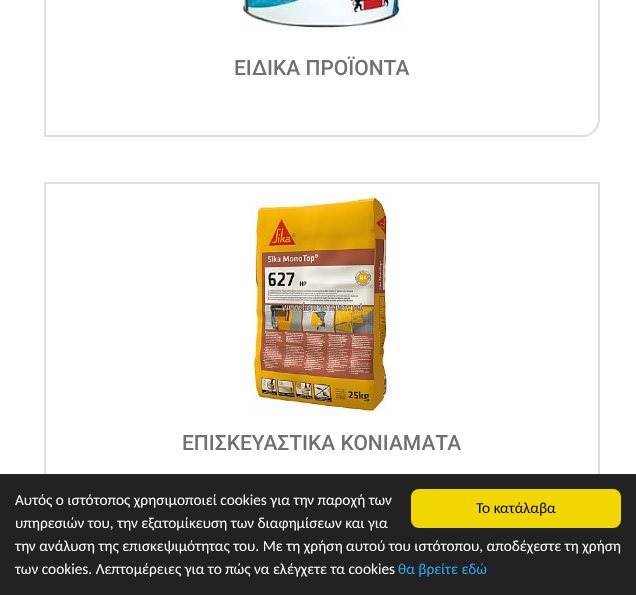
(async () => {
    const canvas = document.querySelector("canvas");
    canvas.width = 636;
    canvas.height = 595;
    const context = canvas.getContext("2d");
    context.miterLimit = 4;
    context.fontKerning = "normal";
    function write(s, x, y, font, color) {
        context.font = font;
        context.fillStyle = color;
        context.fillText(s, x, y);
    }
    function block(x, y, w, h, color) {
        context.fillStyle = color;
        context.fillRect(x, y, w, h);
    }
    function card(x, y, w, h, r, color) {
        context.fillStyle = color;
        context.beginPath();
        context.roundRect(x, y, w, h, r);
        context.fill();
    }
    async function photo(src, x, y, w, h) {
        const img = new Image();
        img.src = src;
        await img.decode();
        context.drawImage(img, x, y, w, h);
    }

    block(0, 0, 636, 595, "rgb(255, 255, 255)");
    context.beginPath();
    context.moveTo(45, -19);
    context.lineTo(599, -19);
    context.lineTo(599, 119);
    context.bezierCurveTo(599, 128.5, 591.5, 136, 582, 136);
    context.lineTo(45, 136);
    context.closePath();
    context.strokeStyle = "rgb(223, 223, 223)";
    context.lineWidth = 2;
    context.stroke();
    await photo("media/1.png", 241, 0, 167, 31);
    write("ΕΙΔΙΚΑ ΠΡΟΪΟΝΤΑ", 234, 75, "500 21px Roboto", "rgb(112, 112, 112)");
    context.strokeRect(45, 183, 554, 328);
    await photo("media/2.png", 250, 197, 137, 218);
    write("ΕΠΙΣΚΕΥΑΣΤΙΚΑ ΚΟΝΙΑΜΑΤΑ", 182, 450, "500 21px Roboto", "rgb(112, 112, 112)");
    block(0, 474, 636, 121, "rgb(34, 34, 34)");
    write("Αυτός ο ιστότοπος χρησιμοποιεί cookies για την παροχή των", 15, 505, "15.3px Carlito", "rgb(255, 255, 255)");
    write("υπηρεσιών του, την εξατομίκευση των διαφημίσεων και για", 15, 528, "15.3px Carlito", "rgb(255, 255, 255)");
    write("την ανάλυση της επισκεψιμότητας του. Με τη χρήση αυτού του ιστότοπου, αποδέχεστε τη χρήση", 15, 551, "15.3px Carlito", "rgb(255, 255, 255)");
    write("των cookies. Λεπτομέρειες για το πώς να ελέγχετε τα cookies", 15, 574, "15.3px Carlito", "rgb(255, 255, 255)");
    write("θα βρείτε εδώ", 398, 574, "15.3px Carlito", "rgb(49, 168, 240)");
    card(411, 489, 210, 39, 8, "rgb(241, 214, 0)");
    write("Το κατάλαβα", 476, 513, "15.3px Carlito", "rgb(0, 0, 0)");
})();
